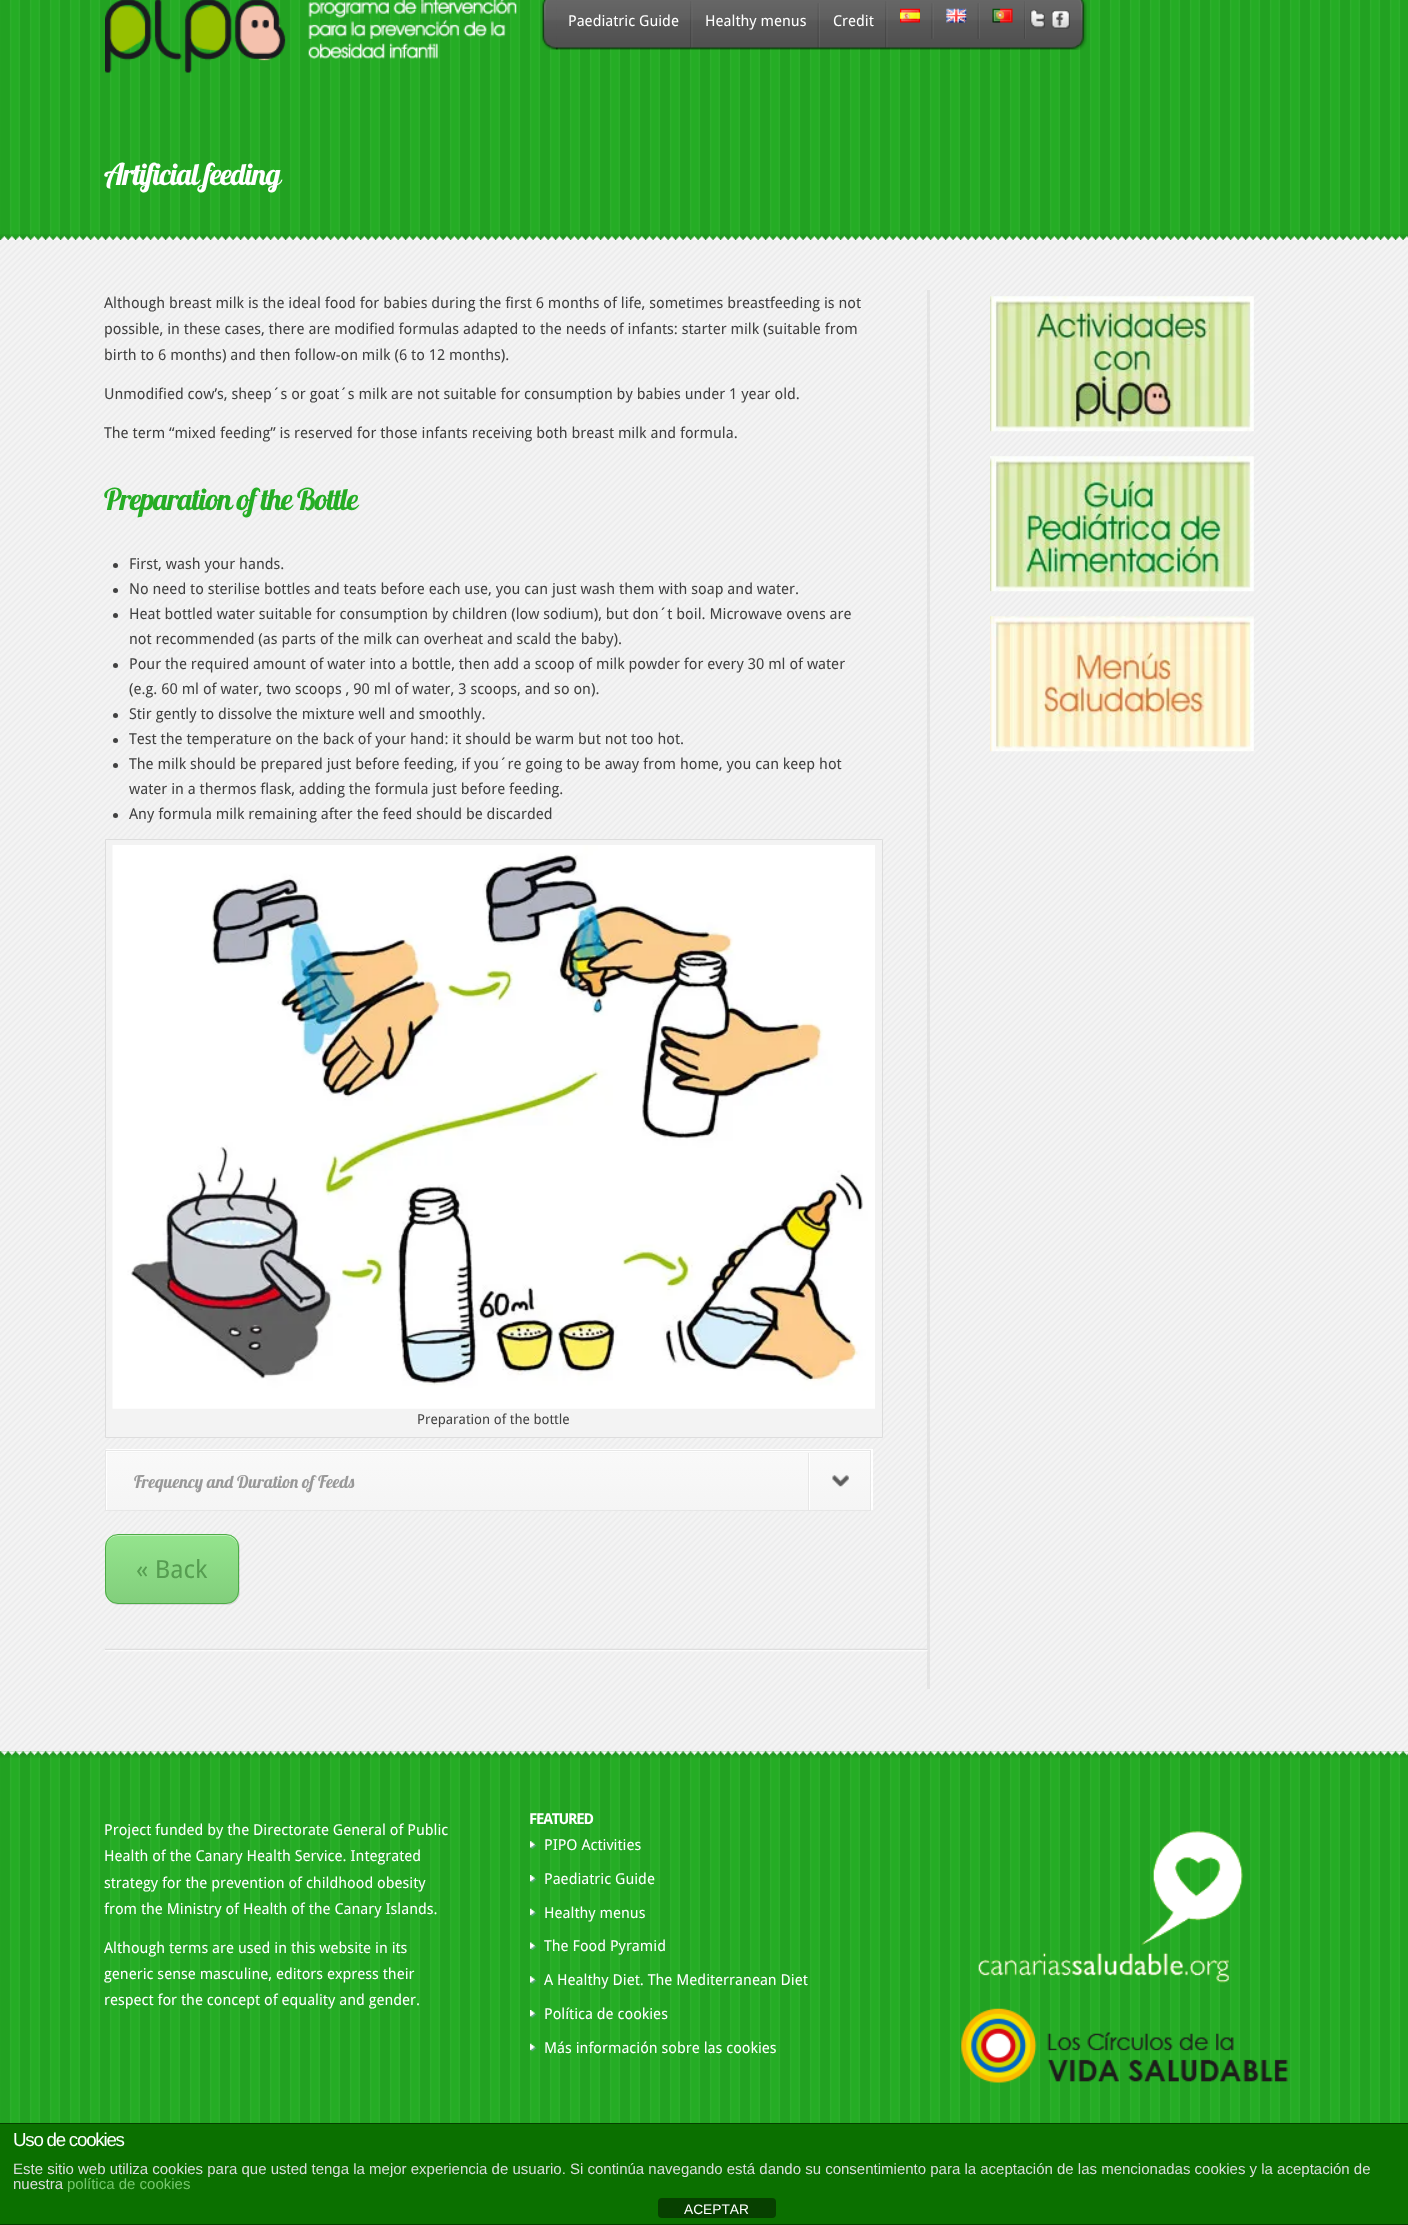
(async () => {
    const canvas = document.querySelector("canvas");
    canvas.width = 1408;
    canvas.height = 2225;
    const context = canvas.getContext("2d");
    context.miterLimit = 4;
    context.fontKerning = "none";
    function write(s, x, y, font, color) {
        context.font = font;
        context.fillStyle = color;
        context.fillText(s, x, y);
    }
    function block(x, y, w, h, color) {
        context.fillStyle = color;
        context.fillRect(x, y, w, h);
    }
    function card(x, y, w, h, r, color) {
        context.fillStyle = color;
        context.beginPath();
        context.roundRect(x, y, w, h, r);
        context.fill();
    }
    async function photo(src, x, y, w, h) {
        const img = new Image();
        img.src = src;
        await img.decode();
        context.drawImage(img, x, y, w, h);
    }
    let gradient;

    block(0, 0, 1408, 2225, "rgb(37, 173, 37)");
    await photo("media/1.png", 0, 0, 1408, 2123);
    await photo("media/2.png", 0, 234, 1408, 6);
    await photo("media/3.png", 105, 0, 412, 73);
    await photo("media/4.png", 541, 0, 17, 50);
    await photo("media/5.png", 1070, 0, 17, 50);
    await photo("media/6.png", 556, 0, 514, 50);
    await photo("media/7.png", 690, 1, 3, 47);
    write("Paediatric Guide", 568, 26, "15px Droid Sans", "rgb(255, 255, 255)");
    await photo("media/8.png", 817, 3, 3, 45);
    write("Healthy menus", 705, 26, "15px Droid Sans", "rgb(255, 255, 255)");
    await photo("media/9.png", 885, 1, 3, 47);
    write("Credit", 833, 26, "15px Droid Sans", "rgb(255, 255, 255)");
    await photo("media/10.png", 931, 3, 3, 36);
    await photo("media/11.png", 900, 8, 20, 15);
    await photo("media/12.png", 977, 3, 3, 36);
    await photo("media/13.png", 946, 8, 21, 15);
    await photo("media/14.png", 1024, 1, 2, 38);
    await photo("media/15.png", 992, 8, 21, 15);
    await photo("media/16.png", 1030, 9, 15, 20);
    await photo("media/17.png", 1051, 10, 19, 19);
    context.letterSpacing = "-1.25px";
    write("Artificial feeding", 104, 185, "30px Lobster", "rgb(255, 255, 255)");
    await photo("media/18.png", 0, 240, 1408, 1512);
    block(927, 290, 3, 1399, "rgb(228, 228, 228)");
    await photo("media/19.png", 105, 1648, 823, 4);
    context.letterSpacing = "0px";
    write("Although breast milk is the ideal food for babies during the first 6 months of life, sometimes breastfeeding is not", 104, 308, "15px Droid Sans", "rgb(65, 65, 65)");
    write("possible, in these cases, there are modified formulas adapted to the needs of infants: starter milk (suitable from", 104, 334, "15px Droid Sans", "rgb(65, 65, 65)");
    write("birth to 6 months) and then follow-on milk (6 to 12 months).", 104, 360, "15px Droid Sans", "rgb(65, 65, 65)");
    write("Unmodified cow’s, sheep´s or goat´s milk are not suitable for consumption by babies under 1 year old.", 104, 399, "15px Droid Sans", "rgb(65, 65, 65)");
    write("The term “mixed feeding” is reserved for those infants receiving both breast milk and formula.", 104, 438, "15px Droid Sans", "rgb(65, 65, 65)");
    context.letterSpacing = "-1.25px";
    write("Preparation of the Bottle", 104, 510, "30px Lobster", "rgb(37, 173, 37)");
    context.fillStyle = "rgb(65, 65, 65)";
    context.beginPath();
    context.arc(115.5, 565.5, 2.5, 0, Math.PI * 2);
    context.fill();
    context.letterSpacing = "0px";
    write("First, wash your hands.", 129, 569, "15px Droid Sans", "rgb(65, 65, 65)");
    context.beginPath();
    context.arc(115.5, 590.5, 2.5, 0, Math.PI * 2);
    context.fill();
    write("No need to sterilise bottles and teats before each use, you can just wash them with soap and water.", 129, 594, "15px Droid Sans", "rgb(65, 65, 65)");
    context.beginPath();
    context.arc(115.5, 615.5, 2.5, 0, Math.PI * 2);
    context.fill();
    write("Heat bottled water suitable for consumption by children (low sodium), but don´t boil. Microwave ovens are", 129, 619, "15px Droid Sans", "rgb(65, 65, 65)");
    write("not recommended (as parts of the milk can overheat and scald the baby).", 129, 644, "15px Droid Sans", "rgb(65, 65, 65)");
    context.beginPath();
    context.arc(115.5, 665.5, 2.5, 0, Math.PI * 2);
    context.fill();
    write("Pour the required amount of water into a bottle, then add a scoop of milk powder for every 30 ml of water", 129, 669, "15px Droid Sans", "rgb(65, 65, 65)");
    write("(e.g. 60 ml of water, two scoops , 90 ml of water, 3 scoops, and so on).", 129, 694, "15px Droid Sans", "rgb(65, 65, 65)");
    context.beginPath();
    context.arc(115.5, 715.5, 2.5, 0, Math.PI * 2);
    context.fill();
    write("Stir gently to dissolve the mixture well and smoothly.", 129, 719, "15px Droid Sans", "rgb(65, 65, 65)");
    context.beginPath();
    context.arc(115.5, 740.5, 2.5, 0, Math.PI * 2);
    context.fill();
    write("Test the temperature on the back of your hand: it should be warm but not too hot.", 129, 744, "15px Droid Sans", "rgb(65, 65, 65)");
    context.beginPath();
    context.arc(115.5, 765.5, 2.5, 0, Math.PI * 2);
    context.fill();
    write("The milk should be prepared just before feeding, if you´re going to be away from home, you can keep hot", 129, 769, "15px Droid Sans", "rgb(65, 65, 65)");
    write("water in a thermos flask, adding the formula just before feeding.", 129, 794, "15px Droid Sans", "rgb(65, 65, 65)");
    context.beginPath();
    context.arc(115.5, 815.5, 2.5, 0, Math.PI * 2);
    context.fill();
    write("Any formula milk remaining after the feed should be discarded", 129, 819, "15px Droid Sans", "rgb(65, 65, 65)");
    context.fillStyle = "rgb(243, 243, 243)";
    context.beginPath();
    context.rect(105.5, 839.5, 777, 598);
    context.fill();
    context.strokeStyle = "rgb(221, 221, 221)";
    context.stroke();
    await photo("media/20.png", 112, 845, 763, 564);
    write("Preparation of the bottle", 417, 1424, "13.75px Droid Sans", "rgb(65, 65, 65)");
    context.fillStyle = "rgb(255, 255, 255)";
    context.beginPath();
    context.moveTo(106, 1449);
    context.lineTo(106, 1450);
    context.lineTo(871, 1450);
    context.lineTo(871, 1510);
    context.lineTo(873, 1510);
    context.lineTo(873, 1449);
    context.closePath();
    context.fill();
    context.strokeStyle = "rgb(231, 231, 231)";
    context.strokeRect(105.5, 1450.5, 765, 60);
    gradient = context.createLinearGradient(489, 1395, 489, 1453);
    gradient.addColorStop(0, "rgb(249, 249, 249)");
    gradient.addColorStop(1, "rgb(245, 245, 245)");
    context.fillStyle = gradient;
    context.fillRect(106, 1452, 764, 1);
    gradient = context.createLinearGradient(489, 1453, 489, 1510);
    gradient.addColorStop(0, "rgb(249, 249, 249)");
    gradient.addColorStop(1, "rgb(245, 245, 245)");
    context.fillStyle = gradient;
    context.fillRect(107, 1453, 763, 57);
    block(106, 1451, 764, 1, "rgb(255, 255, 255)");
    block(106, 1451, 1, 59, "rgb(255, 255, 255)");
    write("Frequency and Duration of Feeds", 134, 1488, "17.5px Lobster", "rgb(153, 153, 153)");
    block(808, 1453, 1, 57, "rgb(231, 231, 231)");
    block(809, 1453, 1, 57, "rgb(255, 255, 255)");
    await photo("media/21.png", 832, 1475, 17, 12);
    context.fillStyle = "rgba(0, 0, 0, 0.1)";
    context.filter = "blur(0.5px)";
    context.beginPath();
    context.roundRect(106, 1535, 134, 70, 13);
    context.fill();
    context.filter = "none";
    context.save();
    context.beginPath();
    context.roundRect(105, 1534, 134, 70, 13);
    context.clip();
    gradient = context.createLinearGradient(172, 1535, 172, 1603);
    gradient.addColorStop(0, "rgb(148, 228, 141)");
    gradient.addColorStop(1, "rgb(130, 207, 124)");
    context.fillStyle = gradient;
    context.fillRect(105, 1535, 134, 68);
    context.restore();
    context.fillStyle = "rgb(191, 239, 187)";
    context.beginPath();
    context.moveTo(118, 1536);
    context.lineTo(226, 1536);
    context.bezierCurveTo(232, 1536, 238, 1541, 238, 1548);
    context.bezierCurveTo(238, 1531, 221, 1535, 209, 1535);
    context.lineTo(135, 1535);
    context.bezierCurveTo(123, 1535, 106, 1531, 106, 1548);
    context.bezierCurveTo(106, 1541, 111, 1536, 118, 1536);
    context.closePath();
    context.fill();
    context.beginPath();
    context.roundRect(105.5, 1534.5, 133, 69, 12.5);
    context.strokeStyle = "rgb(77, 171, 70)";
    context.stroke();
    write("« Back", 136, 1578, "25px Droid Sans", "rgb(86, 157, 81)");
    await photo("media/22.png", 990, 296, 264, 136);
    await photo("media/23.png", 990, 456, 264, 136);
    await photo("media/24.png", 990, 616, 264, 136);
    await photo("media/25.png", 0, 1751, 1408, 7);
    write("Project funded by the Directorate General of Public", 104, 1835, "15px Droid Sans", "rgb(255, 255, 255)");
    write("Health of the Canary Health Service. Integrated", 104, 1861, "15px Droid Sans", "rgb(255, 255, 255)");
    write("strategy for the prevention of childhood obesity", 104, 1888, "15px Droid Sans", "rgb(255, 255, 255)");
    write("from the Ministry of Health of the Canary Islands.", 104, 1914, "15px Droid Sans", "rgb(255, 255, 255)");
    write("Although terms are used in this website in its", 104, 1953, "15px Droid Sans", "rgb(255, 255, 255)");
    write("generic sense masculine, editors express their", 104, 1979, "15px Droid Sans", "rgb(255, 255, 255)");
    write("respect for the concept of equality and gender.", 104, 2005, "15px Droid Sans", "rgb(255, 255, 255)");
    context.letterSpacing = "-1.25px";
    write("FEATURED", 529, 1824, "bold 15px Droid Sans", "rgb(255, 255, 255)");
    await photo("media/26.png", 530, 1841, 7, 8);
    context.letterSpacing = "0px";
    write("PIPO Activities", 544, 1850, "15px Droid Sans", "rgb(255, 255, 255)");
    await photo("media/27.png", 530, 1875, 7, 8);
    write("Paediatric Guide", 544, 1884, "15px Droid Sans", "rgb(255, 255, 255)");
    await photo("media/28.png", 530, 1908, 7, 9);
    write("Healthy menus", 544, 1918, "15px Droid Sans", "rgb(255, 255, 255)");
    await photo("media/29.png", 530, 1942, 7, 8);
    write("The Food Pyramid", 544, 1951, "15px Droid Sans", "rgb(255, 255, 255)");
    await photo("media/30.png", 530, 1976, 7, 8);
    write("A Healthy Diet. The Mediterranean Diet", 544, 1985, "15px Droid Sans", "rgb(255, 255, 255)");
    await photo("media/27.png", 530, 2010, 7, 8);
    write("Política de cookies", 544, 2019, "15px Droid Sans", "rgb(255, 255, 255)");
    await photo("media/28.png", 530, 2043, 7, 9);
    write("Más información sobre las cookies", 544, 2053, "15px Droid Sans", "rgb(255, 255, 255)");
    await photo("media/31.png", 978, 1831, 265, 152);
    await photo("media/32.png", 961, 2008, 327, 75);
    block(0, 2124, 1408, 100, "rgb(11, 112, 0)");
    block(0, 2123, 1408, 1, "rgb(6, 64, 0)");
    block(0, 2224, 1408, 1, "rgb(6, 64, 0)");
    context.letterSpacing = "-1.25px";
    write("Uso de cookies", 13, 2146, "18.75px Liberation Sans", "rgb(255, 255, 255)");
    context.letterSpacing = "0px";
    write("Este sitio web utiliza cookies para que usted tenga la mejor experiencia de usuario. Si continúa navegando está dando su consentimiento para la aceptación de las mencionadas cookies y la aceptación de", 13, 2174, "15px Liberation Sans", "rgb(221, 221, 221)");
    write("nuestra", 13, 2189, "15px Liberation Sans", "rgb(221, 221, 221)");
    write("política de cookies", 67, 2189, "15px Liberation Sans", "rgb(117, 199, 108)");
    card(658, 2198, 118, 20, 4, "rgb(7, 64, 0)");
    write("ACEPTAR", 684, 2214, "13.75px Liberation Sans", "rgb(255, 255, 255)");
})();
